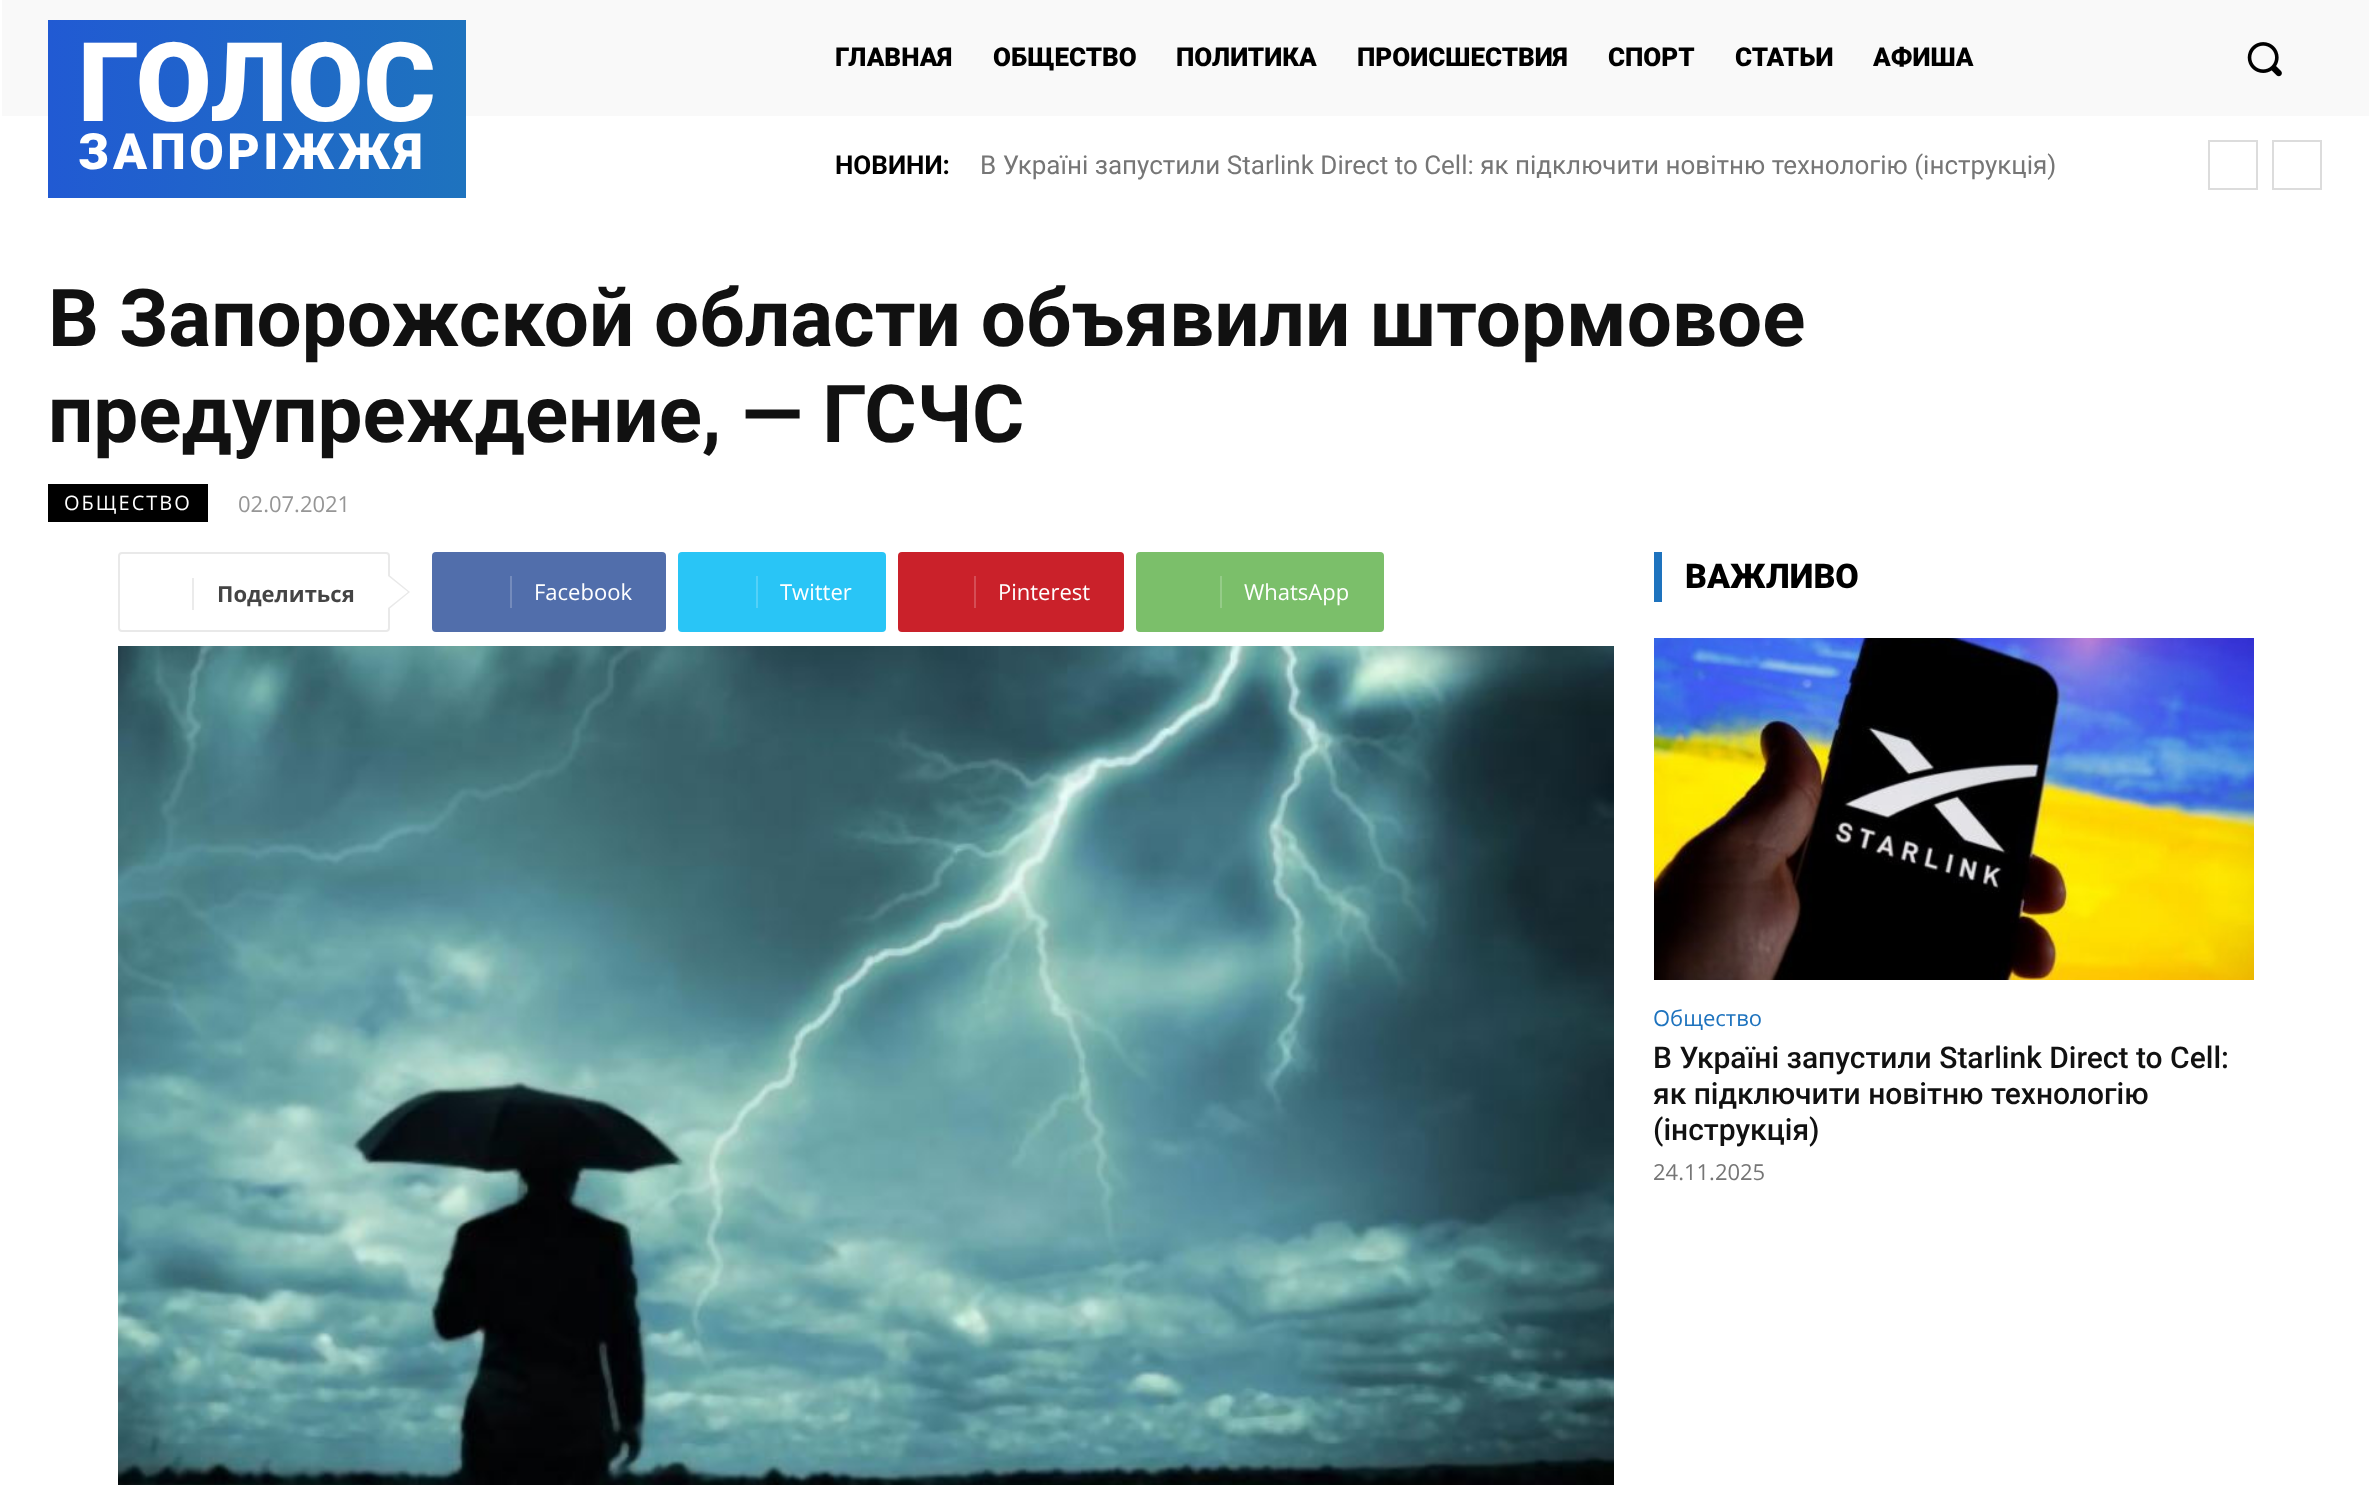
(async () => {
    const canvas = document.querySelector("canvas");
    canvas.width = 2369;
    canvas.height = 1485;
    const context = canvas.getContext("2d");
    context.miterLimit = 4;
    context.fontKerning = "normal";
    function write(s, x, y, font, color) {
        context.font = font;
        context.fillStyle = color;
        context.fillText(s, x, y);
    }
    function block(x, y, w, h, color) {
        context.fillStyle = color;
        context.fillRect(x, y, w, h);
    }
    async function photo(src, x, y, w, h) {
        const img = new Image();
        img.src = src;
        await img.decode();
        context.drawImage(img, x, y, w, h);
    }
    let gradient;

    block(0, 0, 2369, 1485, "rgb(255, 255, 255)");
    block(2, 0, 2367, 116, "rgb(249, 249, 249)");
    gradient = context.createLinearGradient(466, 109, 48, 109);
    gradient.addColorStop(0, "rgb(30, 115, 190)");
    gradient.addColorStop(1, "rgb(33, 90, 211)");
    context.fillStyle = gradient;
    context.fillRect(48, 20, 418, 178);
    write("ГОЛОС", 78, 121, "900 110px Roboto", "rgb(255, 255, 255)");
    context.letterSpacing = "3.5px";
    write("ЗАПОРІЖЖЯ", 78, 169, "900 50px Roboto", "rgb(255, 255, 255)");
    context.letterSpacing = "0px";
    write("ГЛАВНАЯ", 835, 66, "900 26px Roboto", "rgb(0, 0, 0)");
    write("ОБЩЕСТВО", 993, 66, "900 26px Roboto", "rgb(0, 0, 0)");
    write("ПОЛИТИКА", 1176, 66, "900 26px Roboto", "rgb(0, 0, 0)");
    write("ПРОИСШЕСТВИЯ", 1357, 66, "900 26px Roboto", "rgb(0, 0, 0)");
    write("СПОРТ", 1608, 66, "900 26px Roboto", "rgb(0, 0, 0)");
    write("СТАТЬИ", 1735, 66, "900 26px Roboto", "rgb(0, 0, 0)");
    write("АФИША", 1873, 66, "900 26px Roboto", "rgb(0, 0, 0)");
    await photo("media/1.png", 2247, 42, 35, 35);
    write("НОВИНИ:", 835, 174, "bold 26px Roboto", "rgb(0, 0, 0)");
    write("В Україні запустили Starlink Direct to Cell: як підключити новітню технологію (інструкція)", 980, 174, "26px Roboto", "rgb(118, 118, 118)");
    context.strokeStyle = "rgb(220, 220, 220)";
    context.lineWidth = 2;
    context.strokeRect(2209, 141, 48, 48);
    context.strokeRect(2273, 141, 48, 48);
    write("В Запорожской области объявили штормовое", 48, 346, "bold 80px Roboto", "rgb(17, 17, 17)");
    write("предупреждение, — ГСЧС", 48, 442, "bold 80px Roboto", "rgb(17, 17, 17)");
    block(48, 484, 160, 38, "rgb(0, 0, 0)");
    context.letterSpacing = "2px";
    write("ОБЩЕСТВО", 64, 510, "20px Open Sans", "rgb(255, 255, 255)");
    context.letterSpacing = "0px";
    write("02.07.2021", 238, 512, "22px Open Sans", "rgb(150, 150, 150)");
    context.beginPath();
    context.roundRect(119, 553, 270, 78, 3);
    context.strokeStyle = "rgb(233, 233, 233)";
    context.stroke();
    context.fillStyle = "rgb(233, 233, 233)";
    context.beginPath();
    context.moveTo(388, 610);
    context.lineTo(388, 574);
    context.lineTo(410, 592);
    context.closePath();
    context.fill();
    block(192, 578, 2, 32, "rgb(235, 235, 235)");
    write("Поделиться", 217, 602, "bold 22px Open Sans", "rgb(68, 68, 68)");
    context.fillStyle = "rgb(255, 255, 255)";
    context.beginPath();
    context.moveTo(388, 608);
    context.lineTo(388, 576);
    context.lineTo(408, 592);
    context.closePath();
    context.fill();
    context.fillStyle = "rgb(81, 110, 171)";
    context.beginPath();
    context.roundRect(510, 552, 156, 80, [0, 4, 4, 0]);
    context.fill();
    context.beginPath();
    context.roundRect(432, 552, 90, 80, [4, 0, 0, 4]);
    context.fill();
    block(510, 576, 2, 32, "rgb(116, 139, 188)");
    write("Facebook", 534, 600, "22px Open Sans", "rgb(255, 255, 255)");
    context.fillStyle = "rgb(41, 197, 246)";
    context.beginPath();
    context.roundRect(756, 552, 130, 80, [0, 4, 4, 0]);
    context.fill();
    context.beginPath();
    context.roundRect(678, 552, 90, 80, [4, 0, 0, 4]);
    context.fill();
    block(756, 576, 2, 32, "rgb(84, 209, 248)");
    write("Twitter", 780, 600, "22px Open Sans", "rgb(255, 255, 255)");
    context.fillStyle = "rgb(202, 33, 42)";
    context.beginPath();
    context.roundRect(974, 552, 150, 80, [0, 4, 4, 0]);
    context.fill();
    context.beginPath();
    context.roundRect(898, 552, 88, 80, [4, 0, 0, 4]);
    context.fill();
    block(974, 576, 2, 32, "rgb(213, 77, 85)");
    write("Pinterest", 998, 600, "22px Open Sans", "rgb(255, 255, 255)");
    context.fillStyle = "rgb(123, 191, 106)";
    context.beginPath();
    context.roundRect(1220, 552, 164, 80, [0, 4, 4, 0]);
    context.fill();
    context.beginPath();
    context.roundRect(1136, 552, 96, 80, [4, 0, 0, 4]);
    context.fill();
    block(1220, 576, 2, 32, "rgb(149, 204, 136)");
    write("WhatsApp", 1244, 600, "22px Open Sans", "rgb(255, 255, 255)");
    await photo("media/2.png", 118, 646, 1496, 839);
    block(1654, 552, 8, 50, "rgb(30, 115, 190)");
    write("ВАЖЛИВО", 1685, 588, "900 34px Roboto", "rgb(0, 0, 0)");
    await photo("media/3.png", 1654, 638, 600, 342);
    write("Общество", 1653, 1026, "22px Open Sans", "rgb(30, 115, 190)");
    write("В Україні запустили Starlink Direct to Cell:", 1653, 1068, "500 30px Roboto", "rgb(17, 17, 17)");
    write("як підключити новітню технологію", 1653, 1104, "500 30px Roboto", "rgb(17, 17, 17)");
    write("(інструкція)", 1653, 1140, "500 30px Roboto", "rgb(17, 17, 17)");
    write("24.11.2025", 1653, 1180, "22px Open Sans", "rgb(118, 118, 118)");
})();
